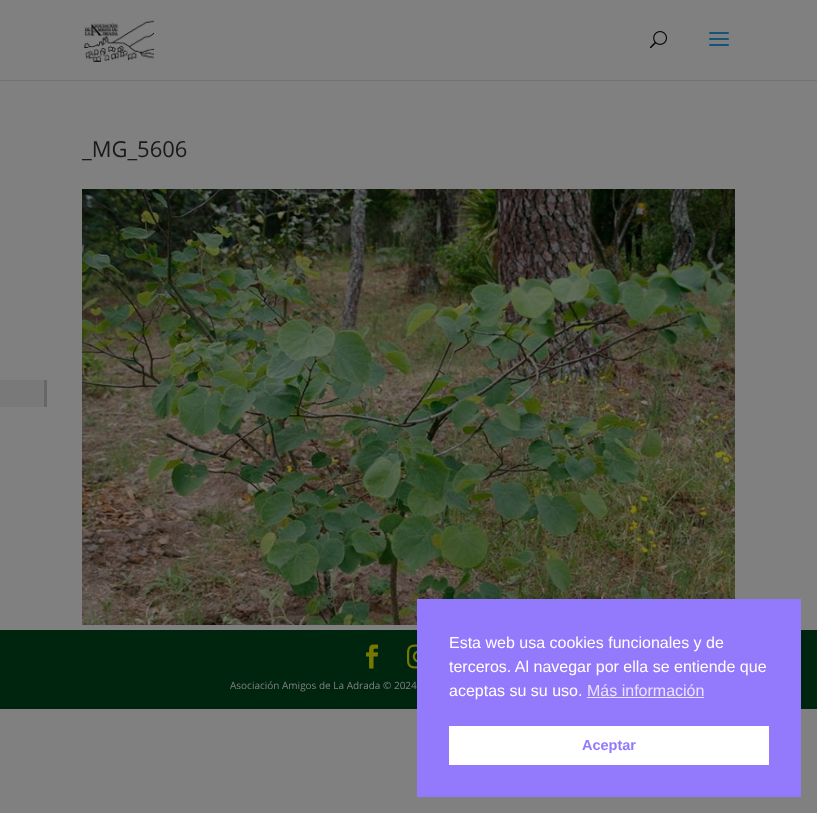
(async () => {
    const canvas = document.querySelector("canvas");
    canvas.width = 817;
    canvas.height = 813;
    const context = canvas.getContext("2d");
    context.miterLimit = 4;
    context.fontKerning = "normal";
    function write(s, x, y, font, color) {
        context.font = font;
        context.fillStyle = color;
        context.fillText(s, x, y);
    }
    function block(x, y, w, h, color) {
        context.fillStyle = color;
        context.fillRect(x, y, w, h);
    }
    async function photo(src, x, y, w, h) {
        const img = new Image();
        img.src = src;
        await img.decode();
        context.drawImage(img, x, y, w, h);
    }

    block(0, 0, 817, 813, "rgb(128, 128, 128)");
    block(0, 380, 44, 27, "rgb(121, 121, 121)");
    block(44, 380, 3, 27, "rgb(103, 103, 103)");
    block(0, 80, 817, 1, "rgb(115, 115, 115)");
    await photo("media/1.png", 84, 20, 70, 42);
    await photo("media/2.png", 650, 31, 17, 18);
    await photo("media/3.png", 709, 32, 20, 14);
    write("_MG_5606", 82, 157, "22px Open Sans", "rgb(26, 26, 26)");
    await photo("media/4.png", 82, 189, 653, 436);
    block(0, 630, 817, 79, "rgb(0, 37, 14)");
    await photo("media/5.png", 366, 644, 13, 25);
    await photo("media/6.png", 407, 644, 10, 25);
    write("Asociación Amigos de La Adrada © 2024", 230, 689, "10px Open Sans", "rgb(128, 128, 128)");
    block(417, 599, 384, 198, "rgb(147, 122, 252)");
    write("Esta web usa cookies funcionales y de", 449, 648, "16px Liberation Sans", "rgb(255, 255, 255)");
    write("terceros. Al navegar por ella se entiende que", 449, 672, "16px Liberation Sans", "rgb(255, 255, 255)");
    write("aceptas su su uso.", 449, 696, "16px Liberation Sans", "rgb(255, 255, 255)");
    write("Más información", 587, 696, "16px Liberation Sans", "rgb(233, 228, 254)");
    block(587, 697, 117, 1, "rgb(233, 228, 254)");
    block(449, 726, 320, 39, "rgb(255, 255, 255)");
    write("Aceptar", 582, 750, "bold 14.5px Liberation Sans", "rgb(147, 122, 252)");
})();
